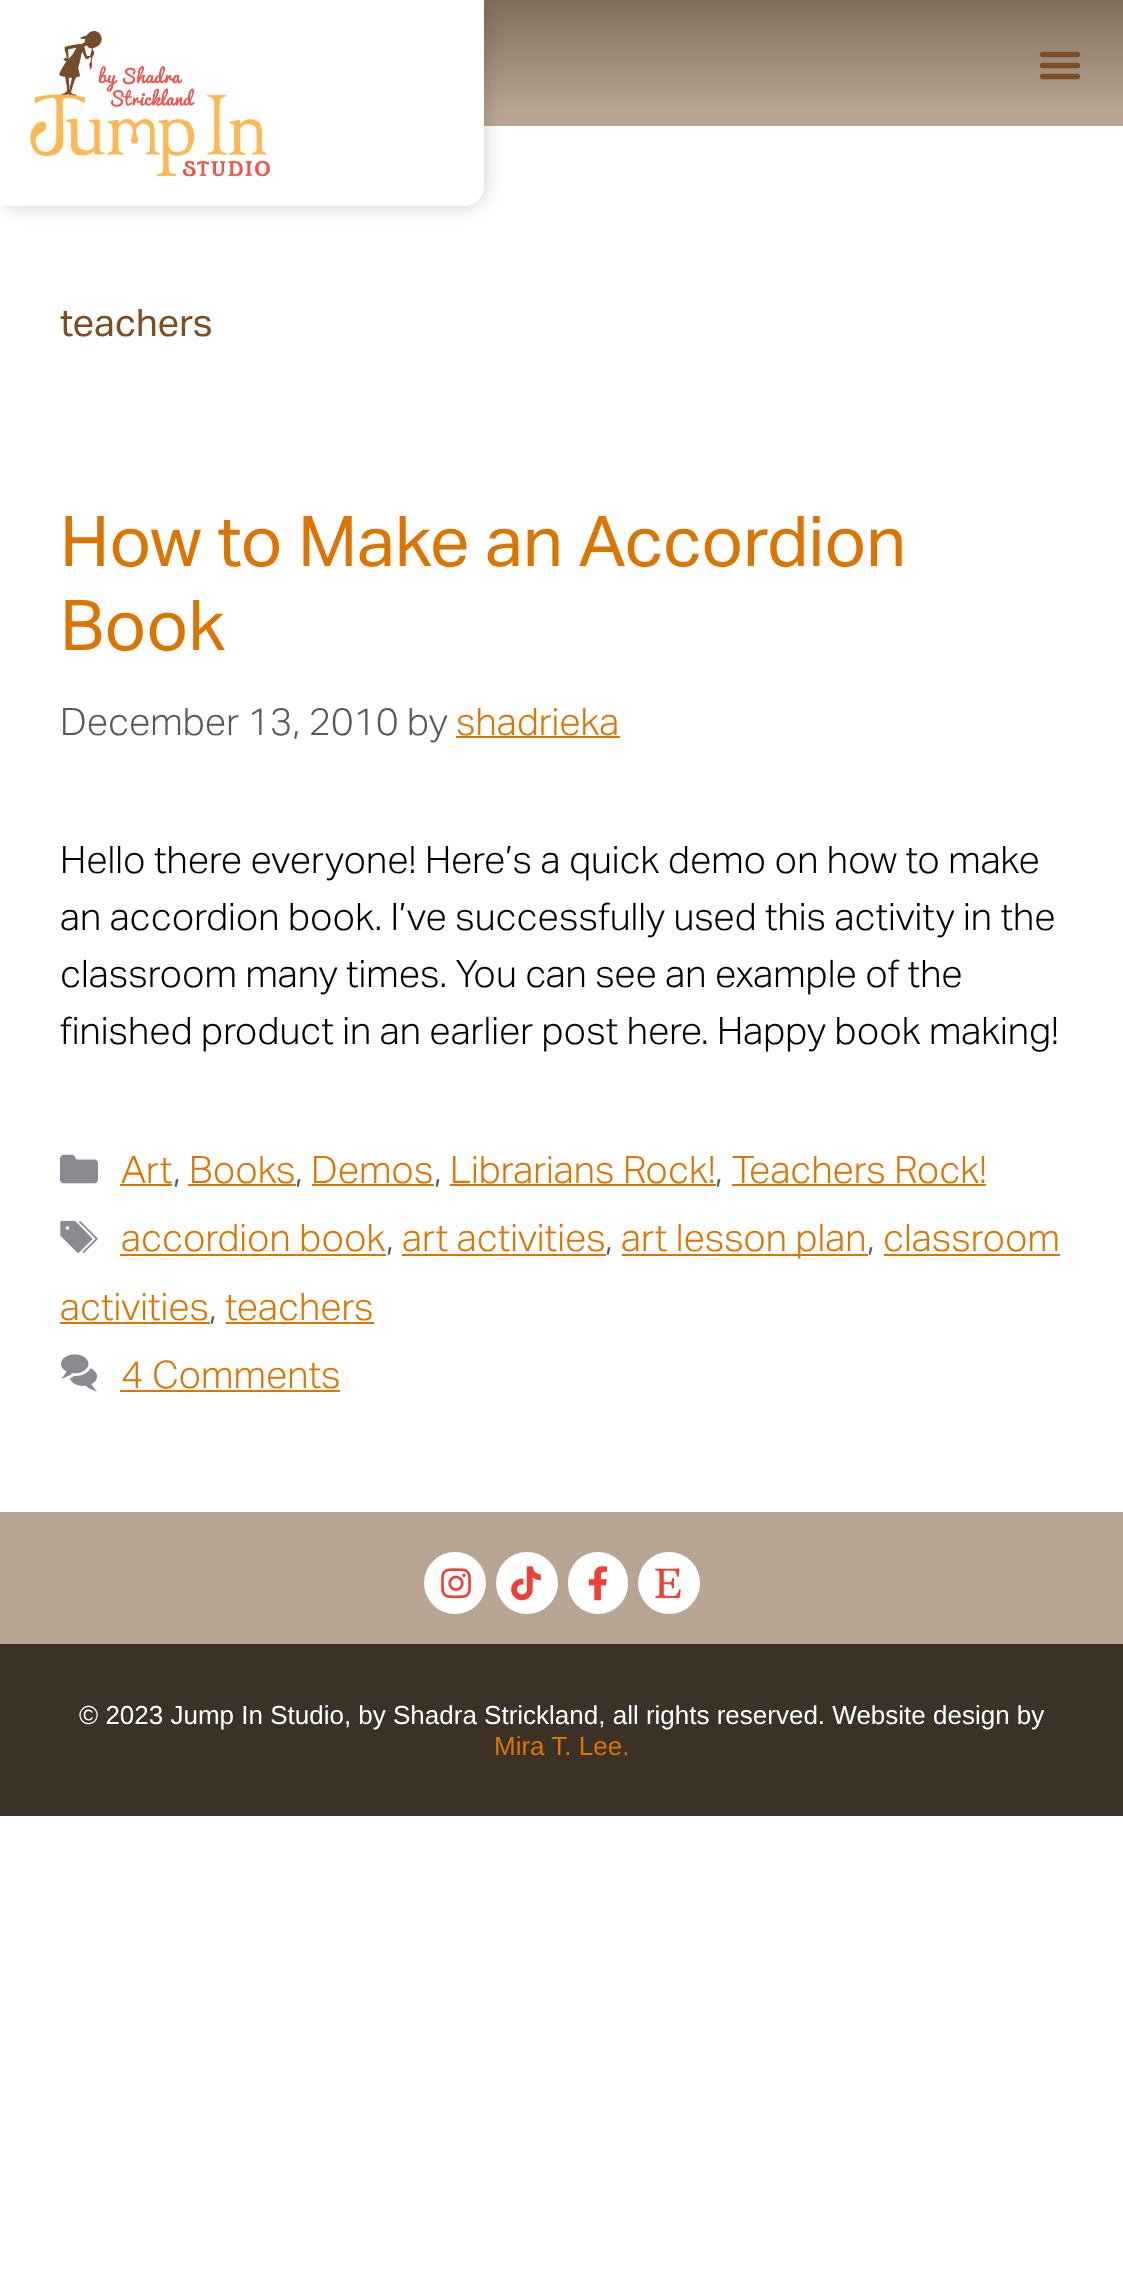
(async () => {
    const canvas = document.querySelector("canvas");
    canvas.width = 1123;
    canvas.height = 2283;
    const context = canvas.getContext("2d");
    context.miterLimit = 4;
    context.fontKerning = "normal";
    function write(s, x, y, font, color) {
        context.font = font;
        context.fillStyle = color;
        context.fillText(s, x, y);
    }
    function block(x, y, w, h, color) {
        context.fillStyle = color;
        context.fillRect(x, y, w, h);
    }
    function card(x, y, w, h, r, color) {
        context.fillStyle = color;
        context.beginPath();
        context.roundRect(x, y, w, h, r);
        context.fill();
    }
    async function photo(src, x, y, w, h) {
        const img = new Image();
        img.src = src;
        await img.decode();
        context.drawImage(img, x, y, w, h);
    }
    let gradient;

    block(0, 0, 1123, 2283, "rgb(255, 255, 255)");
    gradient = context.createLinearGradient(804, 0, 804, 126);
    gradient.addColorStop(0, "rgb(128, 109, 92)");
    gradient.addColorStop(0.88, "rgb(185, 165, 147)");
    context.fillStyle = gradient;
    context.fillRect(484, 0, 639, 126);
    context.fillStyle = "rgba(0, 0, 0, 0.2)";
    context.filter = "blur(10px)";
    context.beginPath();
    context.roundRect(0, 0, 484, 206, 20);
    context.fill();
    context.filter = "none";
    context.fillStyle = "rgb(255, 255, 255)";
    context.beginPath();
    context.roundRect(0, 0, 484, 206, [0, 0, 20, 0]);
    context.fill();
    await photo("media/1.png", 30, 30, 240, 147);
    await photo("media/2.png", 1039, 51, 42, 29);
    write("teachers", 60, 336, "38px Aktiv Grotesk", "rgb(125, 78, 35)");
    write("How to Make an Accordion", 60, 566, "70px Aktiv Grotesk", "rgb(219, 117, 0)");
    write("Book", 60, 650, "70px Aktiv Grotesk", "rgb(219, 117, 0)");
    write("December 13, 2010 by", 60, 735, "300 38px Aktiv Grotesk", "rgb(87, 87, 96)");
    write("shadrieka", 456, 735, "300 38px Aktiv Grotesk", "rgb(219, 117, 0)");
    block(456, 736, 164, 2, "rgb(219, 117, 0)");
    write("Hello there everyone! Here’s a quick demo on how to make", 60, 873, "300 38px Aktiv Grotesk", "rgb(0, 0, 0)");
    write("an accordion book. I’ve successfully used this activity in the", 60, 930, "300 38px Aktiv Grotesk", "rgb(0, 0, 0)");
    write("classroom many times. You can see an example of the", 60, 987, "300 38px Aktiv Grotesk", "rgb(0, 0, 0)");
    write("finished product in an earlier post here. Happy book making!", 60, 1044, "300 38px Aktiv Grotesk", "rgb(0, 0, 0)");
    await photo("media/3.png", 60, 1154, 38, 30);
    write("Art", 121, 1183, "300 38px Aktiv Grotesk", "rgb(219, 117, 0)");
    block(120, 1184, 52, 2, "rgb(219, 117, 0)");
    write(",", 173, 1183, "300 38px Aktiv Grotesk", "rgb(87, 87, 96)");
    write("Books", 189, 1183, "300 38px Aktiv Grotesk", "rgb(219, 117, 0)");
    block(188, 1184, 108, 2, "rgb(219, 117, 0)");
    write(",", 295, 1183, "300 38px Aktiv Grotesk", "rgb(87, 87, 96)");
    write("Demos", 311, 1183, "300 38px Aktiv Grotesk", "rgb(219, 117, 0)");
    block(312, 1184, 122, 2, "rgb(219, 117, 0)");
    write(",", 434, 1183, "300 38px Aktiv Grotesk", "rgb(87, 87, 96)");
    write("Librarians Rock!", 450, 1183, "300 38px Aktiv Grotesk", "rgb(219, 117, 0)");
    block(450, 1184, 266, 2, "rgb(219, 117, 0)");
    write(",", 715, 1183, "300 38px Aktiv Grotesk", "rgb(87, 87, 96)");
    write("Teachers Rock!", 732, 1183, "300 38px Aktiv Grotesk", "rgb(219, 117, 0)");
    block(732, 1184, 254, 2, "rgb(219, 117, 0)");
    await photo("media/4.png", 60, 1220, 38, 33);
    write("accordion book", 121, 1251, "300 38px Aktiv Grotesk", "rgb(219, 117, 0)");
    block(120, 1254, 266, 2, "rgb(219, 117, 0)");
    write(",", 386, 1251, "300 38px Aktiv Grotesk", "rgb(87, 87, 96)");
    write("art activities", 402, 1251, "300 38px Aktiv Grotesk", "rgb(219, 117, 0)");
    block(402, 1254, 204, 2, "rgb(219, 117, 0)");
    write(",", 605, 1251, "300 38px Aktiv Grotesk", "rgb(87, 87, 96)");
    block(622, 1254, 246, 2, "rgb(219, 117, 0)");
    write("art lesson plan", 621, 1251, "300 38px Aktiv Grotesk", "rgb(219, 117, 0)");
    write(",", 867, 1251, "300 38px Aktiv Grotesk", "rgb(87, 87, 96)");
    write("classroom", 883, 1251, "300 38px Aktiv Grotesk", "rgb(219, 117, 0)");
    block(884, 1254, 176, 2, "rgb(219, 117, 0)");
    write("activities", 60, 1320, "300 38px Aktiv Grotesk", "rgb(219, 117, 0)");
    block(60, 1322, 150, 2, "rgb(219, 117, 0)");
    write(",", 209, 1320, "300 38px Aktiv Grotesk", "rgb(87, 87, 96)");
    write("teachers", 225, 1320, "300 38px Aktiv Grotesk", "rgb(219, 117, 0)");
    block(226, 1322, 148, 2, "rgb(219, 117, 0)");
    await photo("media/5.png", 61, 1354, 36, 38);
    write("4 Comments", 121, 1388, "300 38px Aktiv Grotesk", "rgb(219, 117, 0)");
    block(120, 1390, 220, 2, "rgb(219, 117, 0)");
    block(0, 1512, 1123, 132, "rgb(185, 165, 147)");
    context.fillStyle = "rgb(255, 255, 255)";
    context.beginPath();
    context.arc(455, 1583, 31, 0, Math.PI * 2);
    context.fill();
    await photo("media/6.png", 441, 1568, 30, 31);
    context.beginPath();
    context.arc(527, 1583, 31, 0, Math.PI * 2);
    context.fill();
    await photo("media/7.png", 511, 1566, 30, 35);
    card(568, 1552, 60, 62, 30, "rgb(255, 255, 255)");
    await photo("media/8.png", 588, 1566, 20, 35);
    context.beginPath();
    context.arc(669, 1583, 31, 0, Math.PI * 2);
    context.fill();
    await photo("media/9.png", 655, 1568, 26, 31);
    block(0, 1644, 1123, 172, "rgb(59, 49, 39)");
    write("© 2023 Jump In Studio, by Shadra Strickland, all rights reserved. Website design by", 79, 1724, "26px Liberation Sans", "rgb(255, 255, 255)");
    write("Mira T. Lee.", 494, 1755, "26px Liberation Sans", "rgb(219, 117, 0)");
})();
